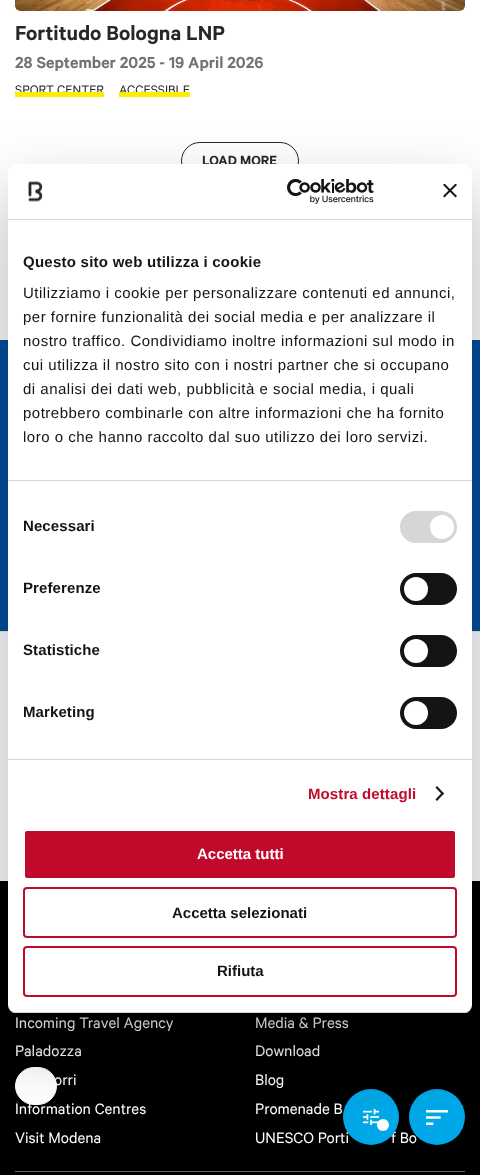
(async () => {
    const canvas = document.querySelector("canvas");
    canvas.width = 480;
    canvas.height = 1175;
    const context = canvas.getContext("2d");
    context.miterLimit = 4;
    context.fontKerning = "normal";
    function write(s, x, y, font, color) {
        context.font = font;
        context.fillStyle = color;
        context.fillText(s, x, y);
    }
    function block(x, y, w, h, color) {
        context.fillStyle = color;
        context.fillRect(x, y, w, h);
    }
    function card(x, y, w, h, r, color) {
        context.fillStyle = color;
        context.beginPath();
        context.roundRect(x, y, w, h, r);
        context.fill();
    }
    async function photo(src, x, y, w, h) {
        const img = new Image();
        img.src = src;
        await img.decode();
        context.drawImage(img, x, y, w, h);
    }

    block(0, 0, 480, 1175, "rgb(255, 255, 255)");
    await photo("media/1.png", 15, 0, 450, 11);
    write("Fortitudo Bologna LNP", 15, 40, "600 23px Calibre", "rgb(39, 39, 39)");
    write("28 September 2025 - 19 April 2026", 15, 68, "600 18px Calibre", "rgb(116, 114, 114)");
    write("SPORT CENTER", 15, 94, "14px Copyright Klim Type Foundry", "rgb(39, 39, 39)");
    block(15, 92, 89, 5, "rgb(255, 237, 0)");
    write("ACCESSIBLE", 119, 94, "14px Copyright Klim Type Foundry", "rgb(39, 39, 39)");
    block(119, 92, 71, 5, "rgb(255, 237, 0)");
    context.beginPath();
    context.roundRect(181.5, 142.5, 117, 37, 18.5);
    context.strokeStyle = "rgb(39, 39, 39)";
    context.stroke();
    write("LOAD MORE", 202, 165, "600 15px Calibre", "rgb(39, 39, 39)");
    block(0, 881, 480, 294, "rgb(0, 0, 0)");
    write("UNESCO Porti", 255, 1143, "17px Copyright Klim Type Foundry", "rgb(255, 255, 255)");
    write("f Bo", 391, 1143, "17px Copyright Klim Type Foundry", "rgb(255, 255, 255)");
    context.fillStyle = "rgb(0, 168, 231)";
    context.beginPath();
    context.arc(371, 1117, 28, 0, Math.PI * 2);
    context.fill();
    context.fillStyle = "rgb(255, 255, 255)";
    context.beginPath();
    context.arc(383, 1125, 6, 0, Math.PI * 2);
    context.fill();
    await photo("media/2.png", 363, 1109, 16, 16);
    context.fillStyle = "rgb(0, 168, 231)";
    context.beginPath();
    context.arc(437, 1117, 28, 0, Math.PI * 2);
    context.fill();
    await photo("media/3.png", 426, 1110, 22, 15);
    block(0, 340, 480, 291, "rgb(0, 79, 159)");
    block(0, 631, 480, 1, "rgb(233, 233, 233)");
    write("Incoming Travel Agency", 15, 1028, "17px Copyright Klim Type Foundry", "rgb(255, 255, 255)");
    write("Paladozza", 15, 1056, "17px Copyright Klim Type Foundry", "rgb(255, 255, 255)");
    write("orri", 54, 1085, "17px Copyright Klim Type Foundry", "rgb(255, 255, 255)");
    write("Information Centres", 15, 1114, "17px Copyright Klim Type Foundry", "rgb(255, 255, 255)");
    write("Visit Modena", 15, 1143, "17px Copyright Klim Type Foundry", "rgb(255, 255, 255)");
    write("Media & Press", 255, 1028, "17px Copyright Klim Type Foundry", "rgb(255, 255, 255)");
    write("Download", 255, 1056, "17px Copyright Klim Type Foundry", "rgb(255, 255, 255)");
    write("Blog", 255, 1085, "17px Copyright Klim Type Foundry", "rgb(255, 255, 255)");
    write("Promenade B", 255, 1114, "17px Copyright Klim Type Foundry", "rgb(255, 255, 255)");
    block(15, 1171, 450, 1, "rgb(102, 102, 102)");
    context.fillStyle = "rgb(255, 255, 255)";
    context.beginPath();
    context.roundRect(15.5, 1067.5, 41, 37, 18.5);
    context.fill();
    context.strokeStyle = "rgb(255, 255, 255)";
    context.stroke();
    context.fillStyle = "rgba(0, 0, 0, 0.3)";
    context.filter = "blur(34px)";
    context.beginPath();
    context.roundRect(8, 196, 464, 849, 8);
    context.fill();
    context.filter = "none";
    card(8, 164, 464, 849, 8, "rgb(255, 255, 255)");
    block(8, 219, 464, 1, "rgb(214, 214, 214)");
    await photo("media/4.png", 28, 181, 15, 21);
    await photo("media/5.png", 287, 179, 87, 25);
    await photo("media/6.png", 443, 184, 14, 14);
    block(8, 480, 464, 1, "rgb(214, 214, 214)");
    context.letterSpacing = "0.25px";
    write("Questo sito web utilizza i cookie", 23, 267, "bold 15px Liberation Sans", "rgb(20, 20, 20)");
    context.letterSpacing = "0.5px";
    write("Utilizziamo i cookie per personalizzare contenuti ed annunci,", 23, 298, "15px Liberation Sans", "rgb(20, 20, 20)");
    write("per fornire funzionalità dei social media e per analizzare il", 23, 322, "15px Liberation Sans", "rgb(20, 20, 20)");
    write("nostro traffico. Condividiamo inoltre informazioni sul modo in", 23, 346, "15px Liberation Sans", "rgb(20, 20, 20)");
    write("cui utilizza il nostro sito con i nostri partner che si occupano", 23, 370, "15px Liberation Sans", "rgb(20, 20, 20)");
    write("di analisi dei dati web, pubblicità e social media, i quali", 23, 394, "15px Liberation Sans", "rgb(20, 20, 20)");
    write("potrebbero combinarle con altre informazioni che ha fornito", 23, 418, "15px Liberation Sans", "rgb(20, 20, 20)");
    write("loro o che hanno raccolto dal suo utilizzo dei loro servizi.", 23, 442, "15px Liberation Sans", "rgb(20, 20, 20)");
    block(8, 759, 464, 1, "rgb(214, 214, 214)");
    context.letterSpacing = "0.1px";
    write("Necessari", 23, 531, "bold 15px Liberation Sans", "rgb(20, 20, 20)");
    card(400, 511, 57, 32, 16, "rgb(214, 214, 214)");
    context.fillStyle = "rgb(255, 255, 255)";
    context.beginPath();
    context.arc(442, 527, 12, 0, Math.PI * 2);
    context.fill();
    write("Preferenze", 23, 593, "bold 15px Liberation Sans", "rgb(20, 20, 20)");
    card(400, 573, 57, 32, 16, "rgb(20, 20, 20)");
    context.fillStyle = "rgb(255, 255, 255)";
    context.beginPath();
    context.arc(416, 589, 12, 0, Math.PI * 2);
    context.fill();
    write("Statistiche", 23, 655, "bold 15px Liberation Sans", "rgb(20, 20, 20)");
    card(400, 635, 57, 32, 16, "rgb(20, 20, 20)");
    context.fillStyle = "rgb(255, 255, 255)";
    context.beginPath();
    context.arc(416, 651, 12, 0, Math.PI * 2);
    context.fill();
    write("Marketing", 23, 717, "bold 15px Liberation Sans", "rgb(20, 20, 20)");
    card(400, 697, 57, 32, 16, "rgb(20, 20, 20)");
    context.fillStyle = "rgb(255, 255, 255)";
    context.beginPath();
    context.arc(416, 713, 12, 0, Math.PI * 2);
    context.fill();
    write("Mostra dettagli", 308, 799, "bold 15px Liberation Sans", "rgb(193, 9, 43)");
    context.fillStyle = "rgb(20, 20, 20)";
    context.beginPath();
    context.moveTo(437, 786);
    context.lineTo(444, 793.5);
    context.lineTo(442.5, 795);
    context.lineTo(435.5, 787.5);
    context.closePath();
    context.fill();
    context.beginPath();
    context.moveTo(442.5, 792);
    context.lineTo(444, 793.5);
    context.lineTo(437, 801);
    context.lineTo(435.5, 799.5);
    context.closePath();
    context.fill();
    context.save();
    context.beginPath();
    context.roundRect(8, 164, 464, 849, 8);
    context.clip();
    block(8, 1012, 464, 1, "rgb(214, 214, 214)");
    context.restore();
    context.fillStyle = "rgb(193, 9, 43)";
    context.beginPath();
    context.roundRect(24, 830, 432, 49, 3);
    context.fill();
    context.lineWidth = 2;
    context.stroke();
    context.letterSpacing = "0px";
    write("Accetta tutti", 197, 859, "bold 15px Liberation Sans", "rgb(255, 255, 255)");
    context.beginPath();
    context.roundRect(24, 888, 432, 49, 3);
    context.strokeStyle = "rgb(193, 9, 43)";
    context.stroke();
    write("Accetta selezionati", 172, 918, "bold 15px Liberation Sans", "rgb(20, 20, 20)");
    context.beginPath();
    context.roundRect(24, 947, 432, 49, 3);
    context.stroke();
    write("Rifiuta", 217, 976, "bold 15px Liberation Sans", "rgb(20, 20, 20)");
})();
